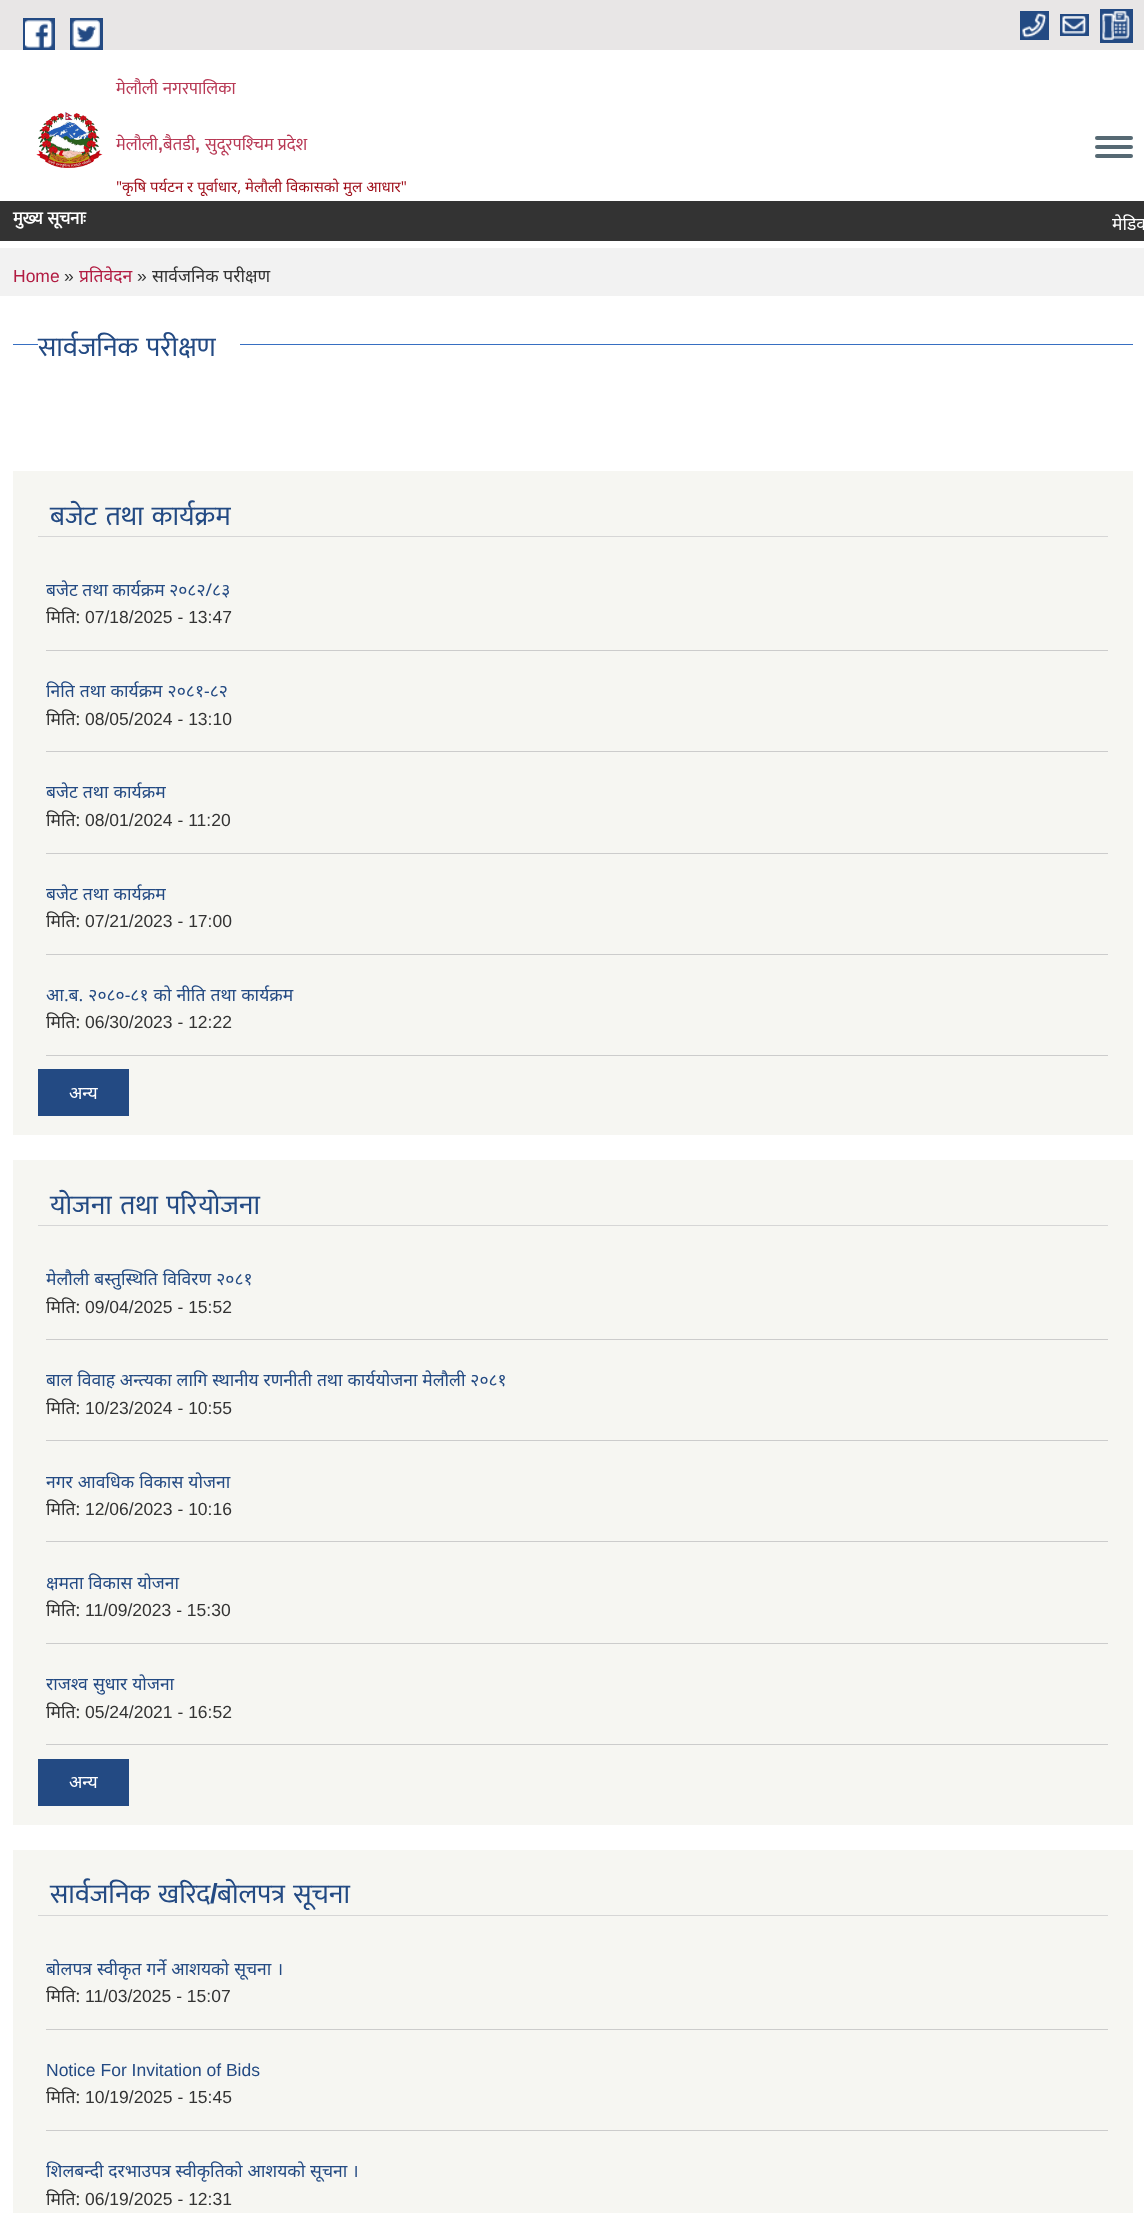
(async () => {
    const canvas = document.querySelector("canvas");
    canvas.width = 1144;
    canvas.height = 2213;
    const context = canvas.getContext("2d");
    context.miterLimit = 4;
    context.fontKerning = "normal";
    function write(s, x, y, font, color) {
        context.font = font;
        context.fillStyle = color;
        context.fillText(s, x, y);
    }
    function block(x, y, w, h, color) {
        context.fillStyle = color;
        context.fillRect(x, y, w, h);
    }
    function card(x, y, w, h, r, color) {
        context.fillStyle = color;
        context.beginPath();
        context.roundRect(x, y, w, h, r);
        context.fill();
    }
    async function photo(src, x, y, w, h) {
        const img = new Image();
        img.src = src;
        await img.decode();
        context.drawImage(img, x, y, w, h);
    }

    block(0, 0, 1144, 2213, "rgb(255, 255, 255)");
    block(0, 0, 1144, 50, "rgb(232, 230, 230)");
    block(23, 18, 32, 32, "rgb(35, 74, 131)");
    block(70, 18, 33, 32, "rgb(35, 74, 131)");
    await photo("media/1.png", 25, 20, 28, 28);
    await photo("media/2.png", 72, 20, 28, 28);
    block(1020, 11, 29, 29, "rgb(35, 74, 131)");
    block(1100, 9, 33, 34, "rgb(35, 74, 131)");
    await photo("media/3.png", 1022, 13, 25, 25);
    block(1060, 14, 29, 22, "rgb(35, 74, 131)");
    await photo("media/4.png", 1102, 11, 28, 29);
    await photo("media/5.png", 1062, 16, 25, 18);
    await photo("media/6.png", 36, 112, 67, 56);
    context.wordSpacing = "1px";
    write("मेलौली नगरपालिका", 116, 94, "17.5px Mukta", "rgb(184, 57, 85)");
    context.wordSpacing = "0px";
    write("मेलौली", 116, 150, "17.5px Mukta", "rgb(184, 57, 85)");
    write(",", 158, 150, "bold 17.5px Liberation Sans", "rgb(184, 57, 85)");
    write("बैतडी", 163, 150, "17.5px Mukta", "rgb(184, 57, 85)");
    write(",", 195, 150, "bold 17.5px Liberation Sans", "rgb(184, 57, 85)");
    write("सुदूरपश्‍चिम प्रदेश", 205, 150, "17.5px Mukta", "rgb(184, 57, 85)");
    write("\"कृषि पर्यटन र पूर्वाधार, मेलौली विकासको मुल आधार\"", 116, 192, "15px Noto Sans", "rgb(158, 12, 24)");
    card(1095, 136, 38, 4, 2, "rgb(86, 105, 115)");
    card(1095, 145, 38, 4, 2, "rgb(86, 105, 115)");
    card(1095, 154, 38, 4, 2, "rgb(86, 105, 115)");
    block(0, 201, 1144, 40, "rgb(51, 51, 51)");
    context.wordSpacing = "1px";
    write("मुख्य सूचनाः", 13, 224, "bold 17.5px Mukta", "rgb(255, 255, 255)");
    context.wordSpacing = "0.25px";
    write("मेडिक", 1112, 230, "17.5px Noto Sans", "rgb(255, 255, 255)");
    block(0, 248, 1144, 48, "rgb(242, 242, 242)");
    context.wordSpacing = "0px";
    write("Home", 13, 282, "17.5px Liberation Sans", "rgb(178, 28, 66)");
    write("»", 64, 282, "17.5px Liberation Sans", "rgb(51, 51, 51)");
    write("प्रतिवेदन", 79, 282, "17.5px Noto Sans", "rgb(178, 28, 66)");
    write("»", 137, 282, "17.5px Liberation Sans", "rgb(51, 51, 51)");
    write("सार्वजनिक परीक्षण", 152, 282, "17.5px Noto Sans", "rgb(51, 51, 51)");
    block(13, 344, 1120, 1, "rgb(55, 111, 194)");
    block(38, 344, 202, 1, "rgb(255, 255, 255)");
    context.wordSpacing = "2px";
    write("सार्वजनिक परीक्षण", 38, 356, "27.5px Mukta", "rgb(35, 74, 131)");
    block(13, 471, 1120, 664, "rgb(246, 246, 242)");
    block(38, 536, 1070, 1, "rgb(214, 214, 214)");
    write("बजेट तथा कार्यक्रम", 50, 525, "27.5px Mukta", "rgb(35, 74, 131)");
    block(46, 650, 1062, 1, "rgb(204, 204, 204)");
    context.wordSpacing = "0px";
    write("बजेट तथा कार्यक्रम २०८२/८३", 46, 596, "17.5px Noto Sans", "rgb(35, 74, 131)");
    write("मिति:", 46, 623, "17.5px Noto Sans", "rgb(51, 51, 51)");
    write("07/18/2025 - 13:47", 85, 623, "17.5px Liberation Sans", "rgb(51, 51, 51)");
    block(46, 751, 1062, 1, "rgb(204, 204, 204)");
    context.wordSpacing = "0.5px";
    write("निति तथा कार्यक्रम २०८१-८२", 46, 697, "17.5px Noto Sans", "rgb(35, 74, 131)");
    context.wordSpacing = "0px";
    write("मिति:", 46, 725, "17.5px Noto Sans", "rgb(51, 51, 51)");
    write("08/05/2024 - 13:10", 85, 725, "17.5px Liberation Sans", "rgb(51, 51, 51)");
    block(46, 853, 1062, 1, "rgb(204, 204, 204)");
    context.wordSpacing = "0.5px";
    write("बजेट तथा कार्यक्रम", 46, 798, "17.5px Noto Sans", "rgb(35, 74, 131)");
    context.wordSpacing = "0px";
    write("मिति:", 46, 826, "17.5px Noto Sans", "rgb(51, 51, 51)");
    write("08/01/2024 - 11:20", 85, 826, "17.5px Liberation Sans", "rgb(51, 51, 51)");
    block(46, 954, 1062, 1, "rgb(204, 204, 204)");
    context.wordSpacing = "0.5px";
    write("बजेट तथा कार्यक्रम", 46, 900, "17.5px Noto Sans", "rgb(35, 74, 131)");
    context.wordSpacing = "0px";
    write("मिति:", 46, 927, "17.5px Noto Sans", "rgb(51, 51, 51)");
    write("07/21/2023 - 17:00", 85, 927, "17.5px Liberation Sans", "rgb(51, 51, 51)");
    block(46, 1055, 1062, 1, "rgb(204, 204, 204)");
    context.wordSpacing = "0.5px";
    write("आ.ब. २०८०-८१ को नीति तथा कार्यक्रम", 46, 1001, "17.5px Noto Sans", "rgb(35, 74, 131)");
    context.wordSpacing = "0px";
    write("मिति:", 46, 1028, "17.5px Noto Sans", "rgb(51, 51, 51)");
    write("06/30/2023 - 12:22", 85, 1028, "17.5px Liberation Sans", "rgb(51, 51, 51)");
    block(38, 1069, 91, 47, "rgb(35, 74, 131)");
    write("अन्य", 69, 1099, "17.5px Noto Sans", "rgb(255, 255, 255)");
    block(13, 1160, 1120, 665, "rgb(246, 246, 242)");
    block(38, 1225, 1070, 1, "rgb(214, 214, 214)");
    context.wordSpacing = "2px";
    write("योजना तथा परियोजना", 50, 1214, "27.5px Mukta", "rgb(35, 74, 131)");
    block(46, 1339, 1062, 1, "rgb(204, 204, 204)");
    context.wordSpacing = "0.5px";
    write("मेलौली बस्तुस्थिति विविरण २०८१", 46, 1285, "17.5px Noto Sans", "rgb(35, 74, 131)");
    context.wordSpacing = "0px";
    write("मिति:", 46, 1313, "17.5px Noto Sans", "rgb(51, 51, 51)");
    write("09/04/2025 - 15:52", 85, 1313, "17.5px Liberation Sans", "rgb(51, 51, 51)");
    block(46, 1440, 1062, 1, "rgb(204, 204, 204)");
    context.wordSpacing = "0.25px";
    write("बाल विवाह अन्त्यका लागि स्थानीय रणनीती तथा कार्ययोजना मेलौली २०८१", 46, 1386, "17.5px Noto Sans", "rgb(35, 74, 131)");
    context.wordSpacing = "0px";
    write("मिति:", 46, 1414, "17.5px Noto Sans", "rgb(51, 51, 51)");
    write("10/23/2024 - 10:55", 85, 1414, "17.5px Liberation Sans", "rgb(51, 51, 51)");
    block(46, 1541, 1062, 1, "rgb(204, 204, 204)");
    context.wordSpacing = "0.5px";
    write("नगर आवधिक विकास योजना", 46, 1488, "17.5px Noto Sans", "rgb(35, 74, 131)");
    context.wordSpacing = "0px";
    write("मिति:", 46, 1515, "17.5px Noto Sans", "rgb(51, 51, 51)");
    write("12/06/2023 - 10:16", 85, 1515, "17.5px Liberation Sans", "rgb(51, 51, 51)");
    block(46, 1643, 1062, 1, "rgb(204, 204, 204)");
    context.wordSpacing = "0.25px";
    write("क्षमता विकास योजना", 46, 1589, "17.5px Noto Sans", "rgb(35, 74, 131)");
    context.wordSpacing = "0px";
    write("मिति:", 46, 1616, "17.5px Noto Sans", "rgb(51, 51, 51)");
    write("11/09/2023 - 15:30", 85, 1616, "17.5px Liberation Sans", "rgb(51, 51, 51)");
    block(46, 1744, 1062, 1, "rgb(204, 204, 204)");
    context.wordSpacing = "0.5px";
    write("राजश्व सुधार योजना", 46, 1690, "17.5px Noto Sans", "rgb(35, 74, 131)");
    context.wordSpacing = "0px";
    write("मिति:", 46, 1718, "17.5px Noto Sans", "rgb(51, 51, 51)");
    write("05/24/2021 - 16:52", 85, 1718, "17.5px Liberation Sans", "rgb(51, 51, 51)");
    block(38, 1759, 91, 47, "rgb(35, 74, 131)");
    write("अन्य", 69, 1788, "17.5px Noto Sans", "rgb(255, 255, 255)");
    block(13, 1850, 1120, 363, "rgb(246, 246, 242)");
    block(38, 1915, 1070, 1, "rgb(214, 214, 214)");
    context.wordSpacing = "2px";
    write("सार्वजनिक खरिद", 50, 1903, "27.5px Mukta", "rgb(35, 74, 131)");
    context.wordSpacing = "0px";
    write("/", 210, 1903, "bold 27.5px Liberation Sans", "rgb(35, 74, 131)");
    context.wordSpacing = "2px";
    write("बोलपत्र सूचना", 217, 1903, "27.5px Mukta", "rgb(35, 74, 131)");
    block(46, 2029, 1062, 1, "rgb(204, 204, 204)");
    context.wordSpacing = "0.5px";
    write("बोलपत्र स्वीकृत गर्ने आशयको सूचना ।", 46, 1975, "17.5px Noto Sans", "rgb(35, 74, 131)");
    context.wordSpacing = "0px";
    write("मिति:", 46, 2002, "17.5px Noto Sans", "rgb(51, 51, 51)");
    write("11/03/2025 - 15:07", 85, 2002, "17.5px Liberation Sans", "rgb(51, 51, 51)");
    block(46, 2130, 1062, 1, "rgb(204, 204, 204)");
    write("Notice For Invitation of Bids", 46, 2076, "17.5px Liberation Sans", "rgb(35, 74, 131)");
    write("मिति:", 46, 2103, "17.5px Noto Sans", "rgb(51, 51, 51)");
    write("10/19/2025 - 15:45", 85, 2103, "17.5px Liberation Sans", "rgb(51, 51, 51)");
    context.wordSpacing = "0.25px";
    write("शिलबन्दी दरभाउपत्र स्वीकृतिको आशयको सूचना ।", 46, 2177, "17.5px Noto Sans", "rgb(35, 74, 131)");
    context.wordSpacing = "0px";
    write("मिति:", 46, 2205, "17.5px Noto Sans", "rgb(51, 51, 51)");
    write("06/19/2025 - 12:31", 85, 2205, "17.5px Liberation Sans", "rgb(51, 51, 51)");
})();
